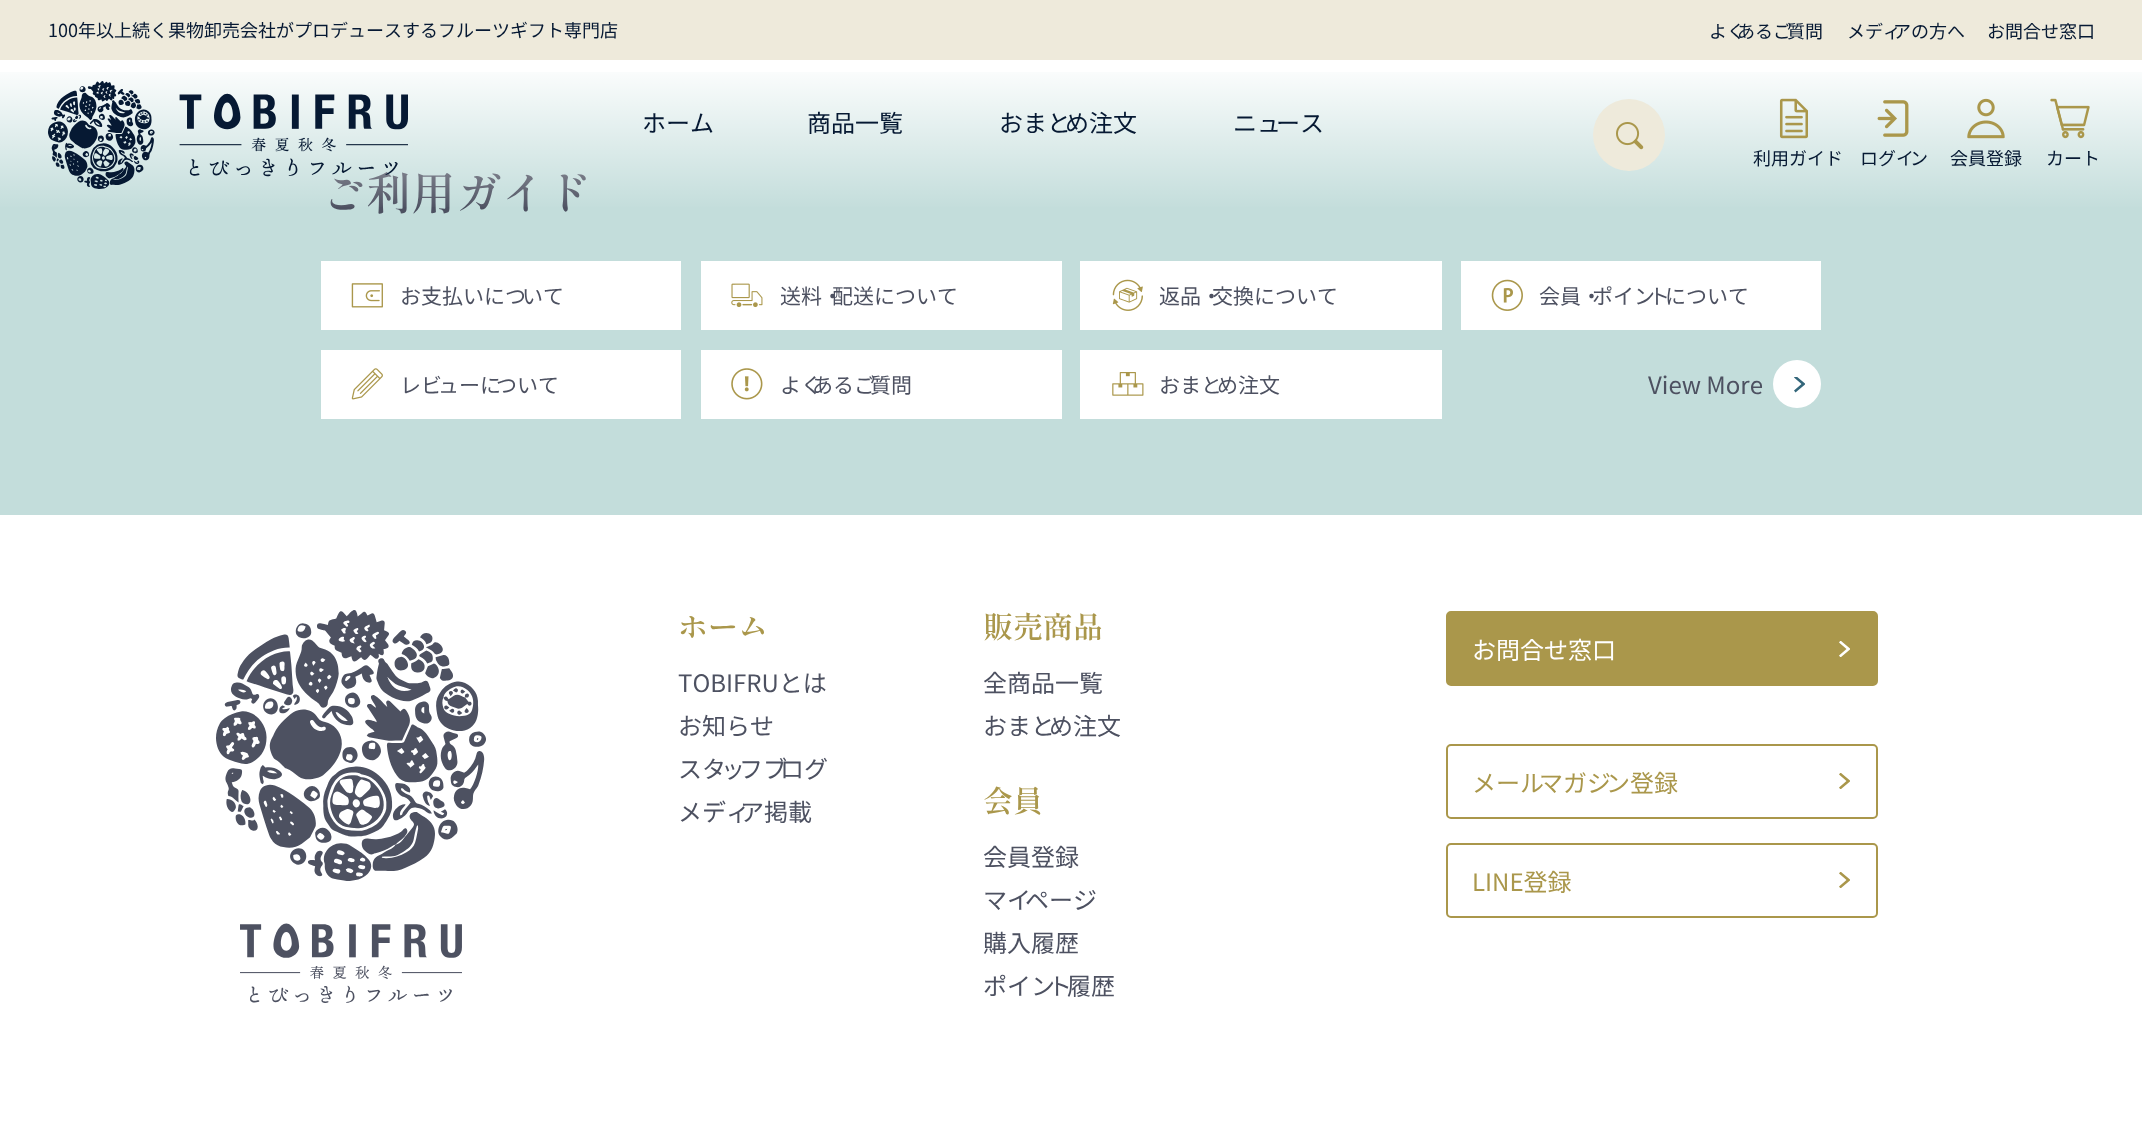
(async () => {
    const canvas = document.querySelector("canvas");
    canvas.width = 2142;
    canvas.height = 1139;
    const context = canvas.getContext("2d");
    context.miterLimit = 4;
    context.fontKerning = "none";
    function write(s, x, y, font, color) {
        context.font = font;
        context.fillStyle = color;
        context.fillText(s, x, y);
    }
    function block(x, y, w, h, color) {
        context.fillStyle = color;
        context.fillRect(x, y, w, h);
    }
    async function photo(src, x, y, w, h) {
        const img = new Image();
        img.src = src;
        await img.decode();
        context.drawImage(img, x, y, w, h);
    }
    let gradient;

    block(0, 0, 2142, 1139, "rgb(255, 255, 255)");
    block(0, 0, 2142, 60, "rgb(238, 234, 219)");
    write("100年以上続く果物卸売会社がプロデュースするフルーツギフト専門店", 48, 37, "18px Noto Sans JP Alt", "rgb(6, 25, 51)");
    write("よく", 1709, 38, "18px Noto Sans JP", "rgb(6, 25, 51)");
    write("あるご", 1737, 38, "18px Noto Sans JP", "rgb(6, 25, 51)");
    write("質問", 1787, 38, "18px Noto Sans JP", "rgb(6, 25, 51)");
    write("メディ", 1847, 38, "18px Noto Sans JP", "rgb(6, 25, 51)");
    write("アの方へ", 1893, 38, "18px Noto Sans JP", "rgb(6, 25, 51)");
    write("お問合せ窓口", 1987, 38, "18px Noto Sans JP", "rgb(6, 25, 51)");
    block(0, 72, 2142, 443, "rgb(195, 221, 219)");
    write("ご利用ガイド", 321, 210, "600 45px Shippori Mincho", "rgb(77, 81, 97)");
    gradient = context.createLinearGradient(1071, 60, 1071, 210);
    gradient.addColorStop(0, "rgb(255, 255, 255)");
    gradient.addColorStop(1, "rgba(255, 255, 255, 0)");
    context.fillStyle = gradient;
    context.fillRect(0, 72, 2142, 135);
    await photo("media/1.png", 48, 81, 360, 108);
    write("ホーム", 642, 132, "24px Noto Sans JP", "rgb(6, 25, 51)");
    write("商品一覧", 807, 132, "24px Noto Sans JP", "rgb(6, 25, 51)");
    write("おまと", 999, 132, "24px Noto Sans JP", "rgb(6, 25, 51)");
    write("め注文", 1065, 132, "24px Noto Sans JP", "rgb(6, 25, 51)");
    write("ニュ", 1233, 132, "24px Noto Sans JP", "rgb(6, 25, 51)");
    write("ース", 1276, 132, "24px Noto Sans JP", "rgb(6, 25, 51)");
    context.fillStyle = "rgb(238, 234, 219)";
    context.beginPath();
    context.arc(1629, 135, 36, 0, Math.PI * 2);
    context.fill();
    await photo("media/2.png", 1616, 122, 28, 28);
    await photo("media/3.png", 1779, 98, 29, 41);
    write("利用ガイド", 1753, 165, "18px Noto Sans JP", "rgb(6, 25, 51)");
    await photo("media/4.png", 1877, 100, 32, 37);
    write("ログイ", 1860, 165, "18px Noto Sans JP", "rgb(6, 25, 51)");
    write("ン", 1910, 165, "18px Noto Sans JP", "rgb(6, 25, 51)");
    await photo("media/5.png", 1967, 98, 38, 41);
    write("会員登録", 1950, 165, "18px Noto Sans JP", "rgb(6, 25, 51)");
    await photo("media/6.png", 2050, 98, 40, 41);
    write("カート", 2046, 165, "18px Noto Sans JP", "rgb(6, 25, 51)");
    block(321, 261, 360, 69, "rgb(255, 255, 255)");
    await photo("media/7.png", 351, 283, 32, 25);
    write("お支払いにつ", 400, 304, "21px Noto Sans JP", "rgb(77, 81, 97)");
    write("いて", 522, 304, "21px Noto Sans JP", "rgb(77, 81, 97)");
    block(701, 261, 361, 69, "rgb(255, 255, 255)");
    await photo("media/8.png", 731, 283, 32, 25);
    write("送料・", 780, 304, "21px Noto Sans JP", "rgb(77, 81, 97)");
    write("配送について", 832, 304, "21px Noto Sans JP", "rgb(77, 81, 97)");
    block(1080, 261, 362, 69, "rgb(255, 255, 255)");
    await photo("media/9.png", 1112, 279, 31, 32);
    write("返品・", 1159, 304, "21px Noto Sans JP", "rgb(77, 81, 97)");
    write("交換について", 1212, 304, "21px Noto Sans JP", "rgb(77, 81, 97)");
    block(1461, 261, 360, 69, "rgb(255, 255, 255)");
    await photo("media/10.png", 1491, 279, 32, 32);
    write("会員・", 1539, 304, "21px Noto Sans JP", "rgb(77, 81, 97)");
    write("ポイン", 1592, 304, "21px Noto Sans JP", "rgb(77, 81, 97)");
    write("ト", 1649, 304, "21px Noto Sans JP", "rgb(77, 81, 97)");
    write("について", 1665, 304, "21px Noto Sans JP", "rgb(77, 81, 97)");
    block(321, 350, 360, 69, "rgb(255, 255, 255)");
    await photo("media/11.png", 351, 368, 32, 32);
    write("レビ", 400, 393, "21px Noto Sans JP", "rgb(77, 81, 97)");
    write("ューに", 438, 393, "21px Noto Sans JP", "rgb(77, 81, 97)");
    write("ついて", 496, 393, "21px Noto Sans JP", "rgb(77, 81, 97)");
    block(701, 350, 361, 69, "rgb(255, 255, 255)");
    await photo("media/12.png", 731, 368, 32, 32);
    write("よく", 780, 393, "21px Noto Sans JP", "rgb(77, 81, 97)");
    write("あるご", 812, 393, "21px Noto Sans JP", "rgb(77, 81, 97)");
    write("質問", 870, 393, "21px Noto Sans JP", "rgb(77, 81, 97)");
    block(1080, 350, 362, 69, "rgb(255, 255, 255)");
    await photo("media/13.png", 1112, 372, 32, 24);
    write("おまと", 1159, 393, "21px Noto Sans JP", "rgb(77, 81, 97)");
    write("め注文", 1217, 393, "21px Noto Sans JP", "rgb(77, 81, 97)");
    write("View More", 1648, 394, "24px Noto Sans JP", "rgb(77, 81, 97)");
    context.fillStyle = "rgb(255, 255, 255)";
    context.beginPath();
    context.arc(1797, 384, 24, 0, Math.PI * 2);
    context.fill();
    context.save();
    context.beginPath();
    context.rect(1794, 377, 11, 16);
    context.clip();
    context.fillStyle = "rgb(51, 102, 122)";
    context.beginPath();
    context.moveTo(1795.5, 392.5);
    context.lineTo(1805.5, 384);
    context.lineTo(1795.5, 375.5);
    context.lineTo(1794, 377.5);
    context.lineTo(1801.5, 384);
    context.lineTo(1794, 390.5);
    context.closePath();
    context.fill();
    context.restore();
    await photo("media/14.png", 216, 610, 270, 393);
    write("ホーム", 678, 638, "600 30px Shippori Mincho", "rgb(170, 151, 75)");
    write("TOBIFRUとは", 678, 692, "24px Noto Sans JP", "rgb(77, 81, 97)");
    write("お知らせ", 678, 735, "24px Noto Sans JP", "rgb(77, 81, 97)");
    write("スタ", 678, 778, "24px Noto Sans JP", "rgb(77, 81, 97)");
    write("ッ", 721, 778, "24px Noto Sans JP", "rgb(77, 81, 97)");
    write("フブ", 739, 778, "24px Noto Sans JP", "rgb(77, 81, 97)");
    write("ログ", 780, 778, "24px Noto Sans JP", "rgb(77, 81, 97)");
    write("メディ", 678, 821, "24px Noto Sans JP", "rgb(77, 81, 97)");
    write("ア掲載", 740, 821, "24px Noto Sans JP", "rgb(77, 81, 97)");
    write("販売商品", 983, 638, "600 30px Shippori Mincho", "rgb(170, 151, 75)");
    write("全商品一覧", 983, 692, "24px Noto Sans JP", "rgb(77, 81, 97)");
    write("おまと", 983, 735, "24px Noto Sans JP", "rgb(77, 81, 97)");
    write("め注文", 1049, 735, "24px Noto Sans JP", "rgb(77, 81, 97)");
    write("会員", 983, 812, "600 30px Shippori Mincho", "rgb(170, 151, 75)");
    write("会員登録", 983, 866, "24px Noto Sans JP", "rgb(77, 81, 97)");
    write("マイ", 983, 909, "24px Noto Sans JP", "rgb(77, 81, 97)");
    write("ページ", 1025, 909, "24px Noto Sans JP", "rgb(77, 81, 97)");
    write("購入履歴", 983, 952, "24px Noto Sans JP", "rgb(77, 81, 97)");
    write("ポイン", 983, 995, "24px Noto Sans JP", "rgb(77, 81, 97)");
    write("ト", 1048, 995, "24px Noto Sans JP", "rgb(77, 81, 97)");
    write("履歴", 1067, 995, "24px Noto Sans JP", "rgb(77, 81, 97)");
    context.fillStyle = "rgb(170, 151, 75)";
    context.beginPath();
    context.roundRect(1447, 612, 430, 73, 4);
    context.fill();
    context.strokeStyle = "rgb(170, 151, 75)";
    context.lineWidth = 2;
    context.stroke();
    write("お問合せ窓口", 1472, 659, "24px Noto Sans JP", "rgb(255, 255, 255)");
    context.save();
    context.beginPath();
    context.rect(1839, 641, 11, 16);
    context.clip();
    context.beginPath();
    context.moveTo(1840.5, 657.5);
    context.lineTo(1850.5, 649);
    context.lineTo(1840.5, 640.5);
    context.lineTo(1839, 642.5);
    context.lineTo(1846.5, 649);
    context.lineTo(1839, 655.5);
    context.closePath();
    context.fill();
    context.restore();
    context.beginPath();
    context.roundRect(1447, 745, 430, 73, 4);
    context.stroke();
    write("メール", 1472, 792, "24px Noto Sans JP", "rgb(170, 151, 75)");
    write("マガジ", 1539, 792, "24px Noto Sans JP", "rgb(170, 151, 75)");
    write("ン登録", 1606, 792, "24px Noto Sans JP", "rgb(170, 151, 75)");
    context.save();
    context.beginPath();
    context.rect(1839, 773, 11, 16);
    context.clip();
    context.beginPath();
    context.moveTo(1840.5, 789.5);
    context.lineTo(1850.5, 781);
    context.lineTo(1840.5, 772.5);
    context.lineTo(1839, 774.5);
    context.lineTo(1846.5, 781);
    context.lineTo(1839, 787.5);
    context.closePath();
    context.fill();
    context.restore();
    context.beginPath();
    context.roundRect(1447, 844, 430, 73, 4);
    context.stroke();
    write("LINE登録", 1472, 891, "24px Noto Sans JP", "rgb(170, 151, 75)");
    context.save();
    context.beginPath();
    context.rect(1839, 872, 11, 16);
    context.clip();
    context.beginPath();
    context.moveTo(1840.5, 888.5);
    context.lineTo(1850.5, 880);
    context.lineTo(1840.5, 871.5);
    context.lineTo(1839, 873.5);
    context.lineTo(1846.5, 880);
    context.lineTo(1839, 886.5);
    context.closePath();
    context.fill();
    context.restore();
})();
